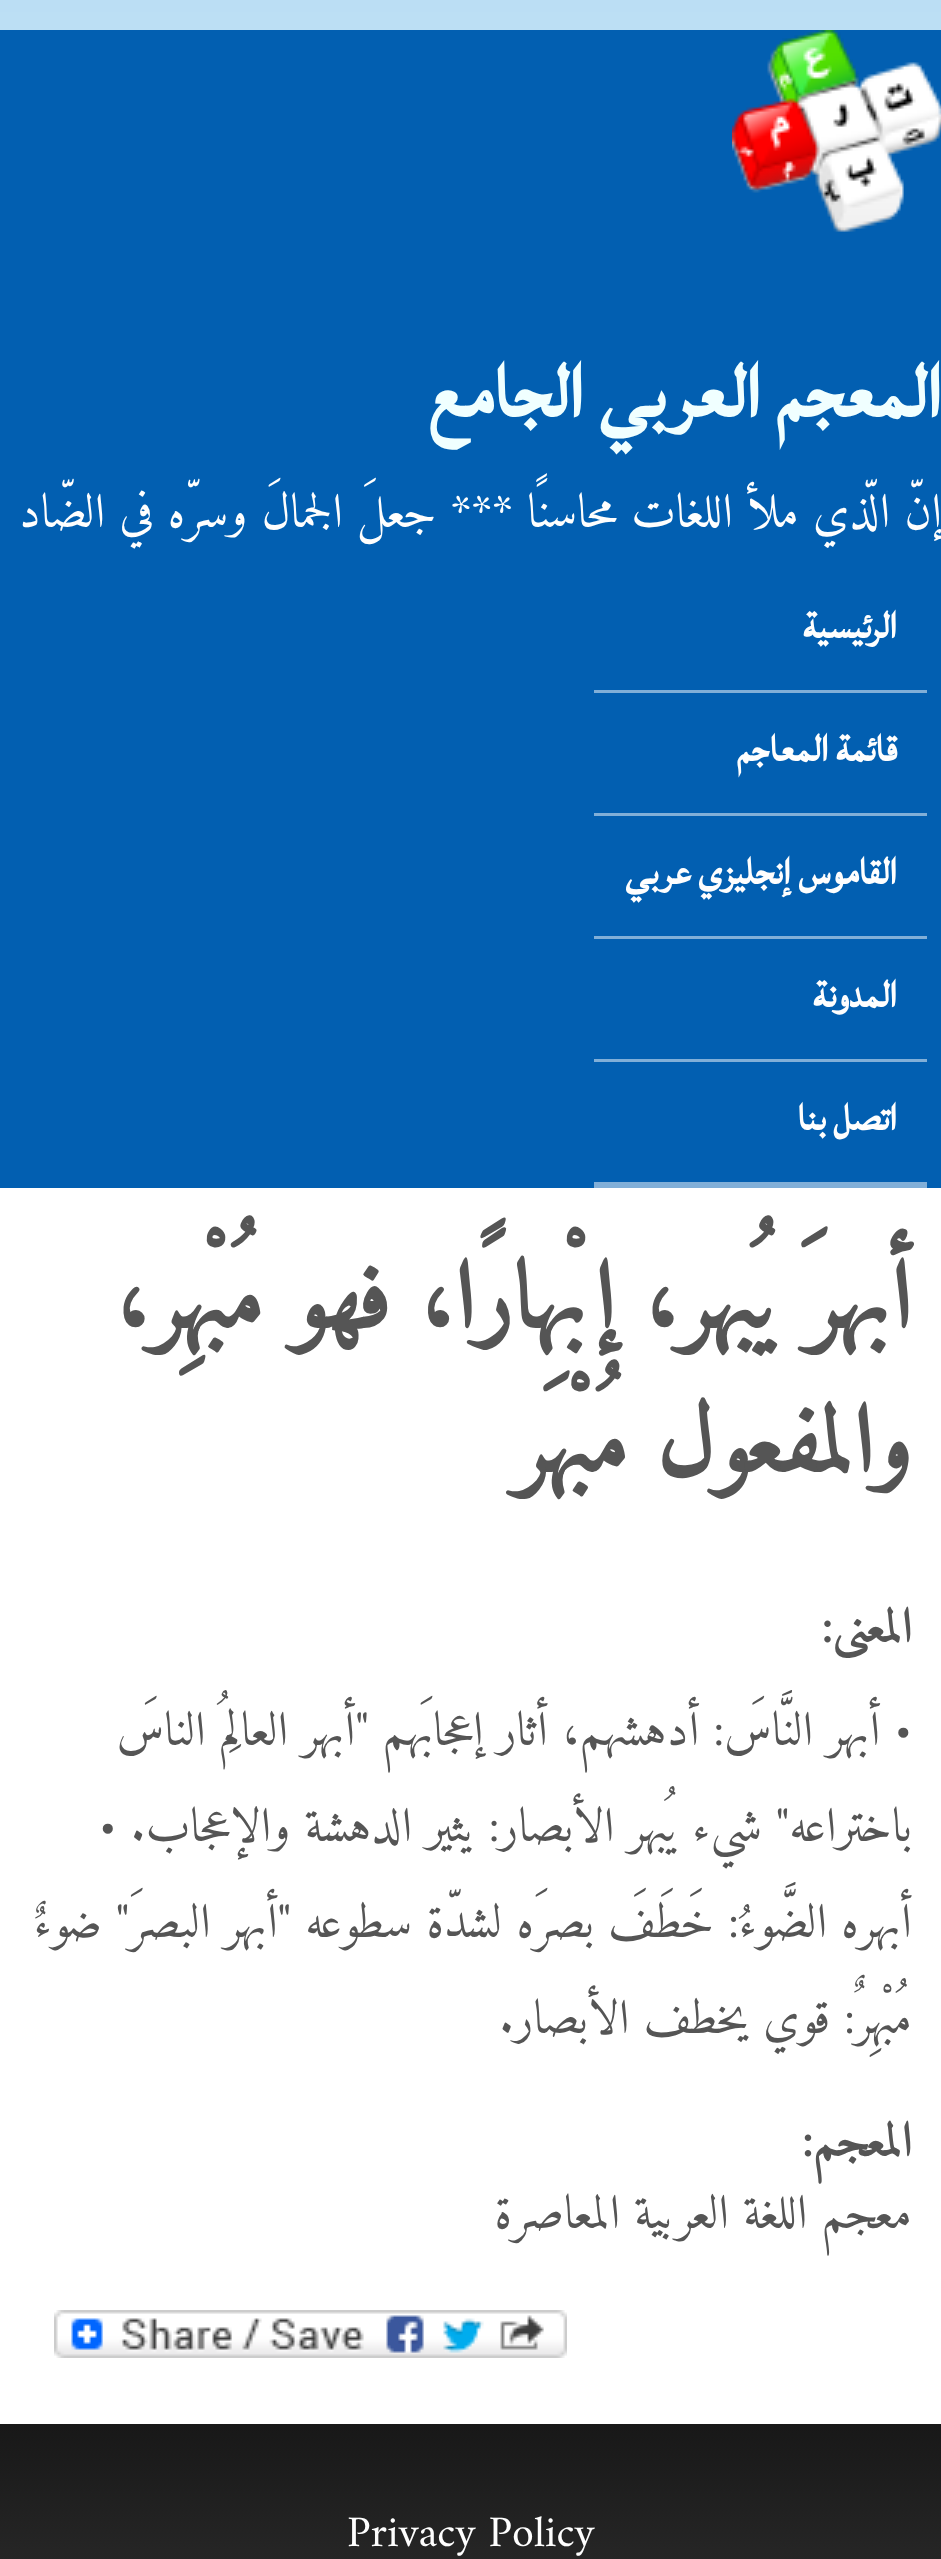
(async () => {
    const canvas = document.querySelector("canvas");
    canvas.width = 941;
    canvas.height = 2559;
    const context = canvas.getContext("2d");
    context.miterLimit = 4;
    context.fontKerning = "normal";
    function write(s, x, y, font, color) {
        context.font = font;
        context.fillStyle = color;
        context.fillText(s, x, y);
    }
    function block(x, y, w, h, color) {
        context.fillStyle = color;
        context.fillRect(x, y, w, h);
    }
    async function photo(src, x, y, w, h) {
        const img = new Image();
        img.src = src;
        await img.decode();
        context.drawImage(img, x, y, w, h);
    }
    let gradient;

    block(0, 0, 941, 2559, "rgb(255, 255, 255)");
    await photo("media/1.png", 0, 0, 941, 30);
    block(0, 30, 941, 1158, "rgb(2, 95, 177)");
    await photo("media/2.png", 732, 30, 209, 202);
    context.direction = "rtl";
    write("المعجم العربي الجامع", 942, 417, "bold 96px Lateef", "rgb(240, 255, 255)");
    write("إنّ الّذي ملأ اللغات محاسنًا", 942, 527, "48px Amiri", "rgb(254, 254, 254)");
    write("*** جعلَ الجمالَ وسرّه في الضّاد", 513, 527, "48px Amiri", "rgb(254, 254, 254)");
    block(594, 1182, 333, 6, "rgb(129, 175, 216)");
    block(594, 690, 333, 3, "rgb(129, 175, 216)");
    write("الرئيسية", 897, 638, "bold 48px Lateef", "rgb(254, 254, 254)");
    block(594, 813, 333, 3, "rgb(129, 175, 216)");
    write("قائمة المعاجم", 897, 761, "bold 48px Lateef", "rgb(254, 254, 254)");
    block(594, 936, 333, 3, "rgb(129, 175, 216)");
    write("القاموس إنجليزي عربي", 897, 884, "bold 48px Lateef", "rgb(254, 254, 254)");
    block(594, 1059, 333, 3, "rgb(129, 175, 216)");
    write("المدونة", 897, 1007, "bold 48px Lateef", "rgb(254, 254, 254)");
    write("اتصل بنا", 897, 1130, "bold 48px Lateef", "rgb(254, 254, 254)");
    write("أبهرَ يُبهر، إبْهارًا، فهو مُبْهِر،", 912, 1328, "bold 96px Amiri", "rgb(85, 85, 85)");
    write("والمفعول مُبْهَر", 912, 1472, "bold 96px Amiri", "rgb(85, 85, 85)");
    write("المعنى:", 912, 1642, "bold 48px Amiri", "rgb(85, 85, 85)");
    write("• أبهر النَّاسَ: أدهشهم، أثار إعجابَهم \"أبهر العالِمُ الناسَ", 912, 1745, "48px Amiri", "rgb(85, 85, 85)");
    write("باختراعه\" شيء يُبهر الأبصار: يثير الدهشة والإعجاب. •", 912, 1841, "48px Amiri", "rgb(85, 85, 85)");
    write("أبهره الضَّوءُ: خَطَفَ بصرَه لشدّة سطوعه \"أبهر البصرَ\" ضوءٌ", 912, 1937, "48px Amiri", "rgb(85, 85, 85)");
    write("مُبْهِرٌ: قوي يخطف الأبصار.", 912, 2033, "48px Amiri", "rgb(85, 85, 85)");
    write("المعجم:", 912, 2156, "bold 48px Amiri", "rgb(85, 85, 85)");
    write("معجم اللغة العربية المعاصرة", 912, 2228, "48px Amiri", "rgb(85, 85, 85)");
    await photo("media/3.png", 54, 2310, 513, 48);
    gradient = context.createLinearGradient(471, 2424, 471, 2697);
    gradient.addColorStop(0, "rgb(24, 24, 24)");
    gradient.addColorStop(1, "rgb(52, 52, 52)");
    context.fillStyle = gradient;
    context.fillRect(0, 2424, 941, 135);
    context.direction = "ltr";
    write("Privacy Policy", 347, 2546, "44px Amiri", "rgb(254, 254, 254)");
})();
